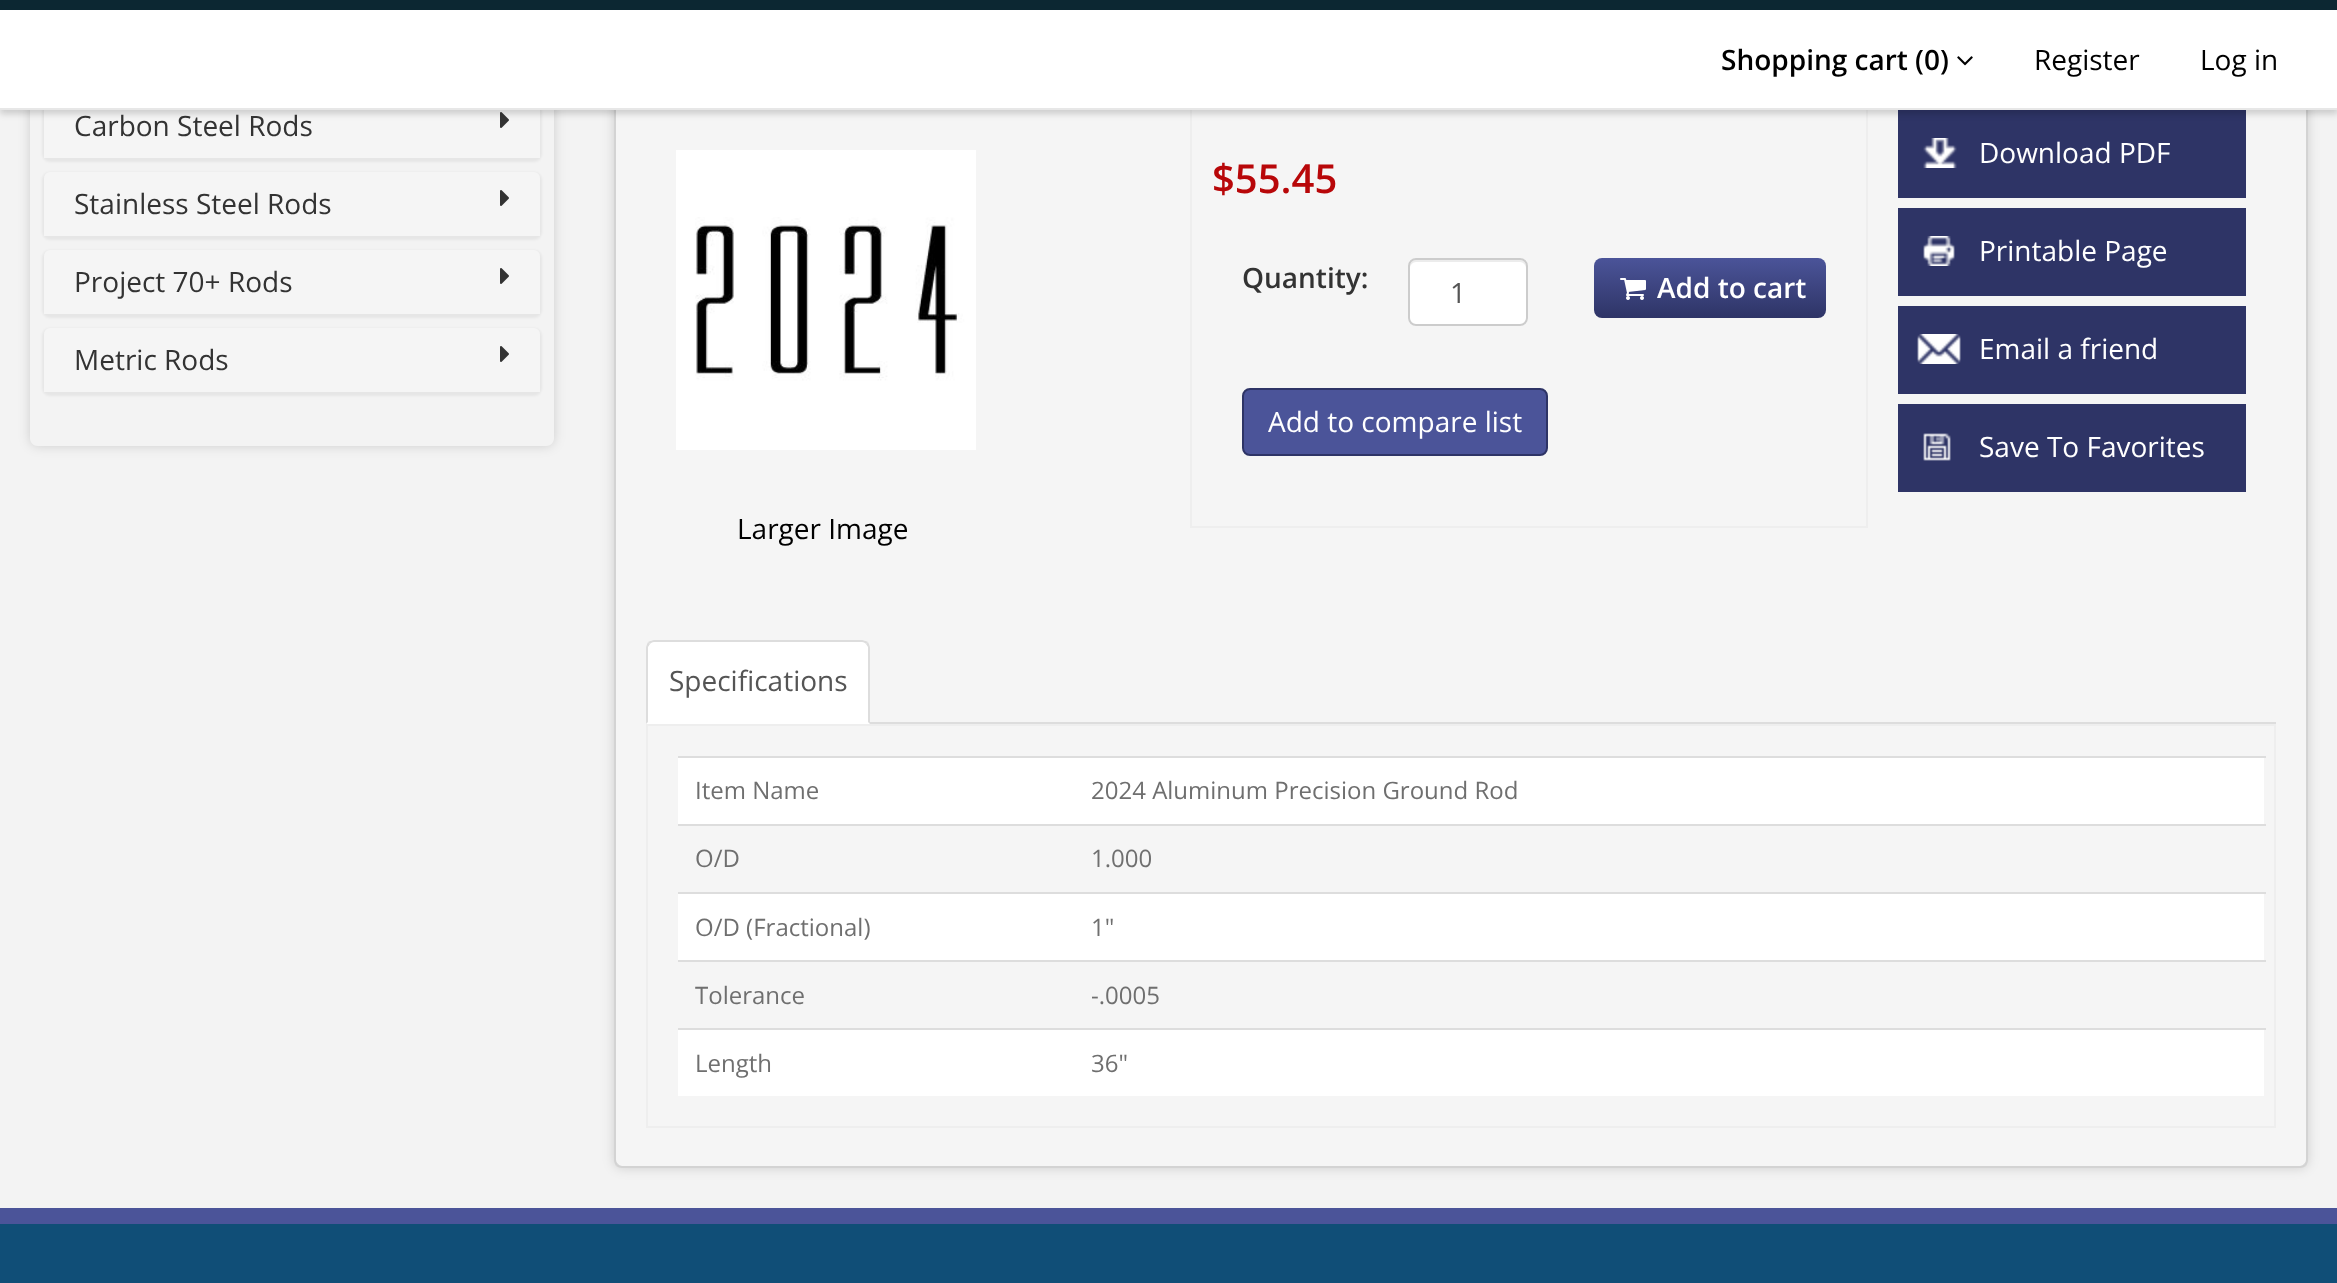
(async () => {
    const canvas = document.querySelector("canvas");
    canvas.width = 2337;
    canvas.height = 1283;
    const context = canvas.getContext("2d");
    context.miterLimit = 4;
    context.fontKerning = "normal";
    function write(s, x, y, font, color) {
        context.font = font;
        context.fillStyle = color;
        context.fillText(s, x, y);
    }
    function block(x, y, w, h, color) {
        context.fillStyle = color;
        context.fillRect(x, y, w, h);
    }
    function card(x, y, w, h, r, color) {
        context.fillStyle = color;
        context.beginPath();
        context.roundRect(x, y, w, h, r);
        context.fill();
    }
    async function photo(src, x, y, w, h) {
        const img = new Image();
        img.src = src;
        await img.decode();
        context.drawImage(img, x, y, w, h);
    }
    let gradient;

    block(0, 0, 2337, 1283, "rgb(243, 243, 243)");
    context.save();
    context.beginPath();
    context.moveTo(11, 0);
    context.lineTo(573, 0);
    context.lineTo(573, 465);
    context.lineTo(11, 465);
    context.closePath();
    context.moveTo(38, -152);
    context.lineTo(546, -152);
    context.bezierCurveTo(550.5, -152, 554, -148.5, 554, -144);
    context.lineTo(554, 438);
    context.bezierCurveTo(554, 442.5, 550.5, 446, 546, 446);
    context.lineTo(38, 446);
    context.bezierCurveTo(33.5, 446, 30, 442.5, 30, 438);
    context.lineTo(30, -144);
    context.bezierCurveTo(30, -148.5, 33.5, -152, 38, -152);
    context.closePath();
    context.clip("evenodd");
    context.fillStyle = "rgba(0, 0, 0, 0.15)";
    context.filter = "blur(6px)";
    context.beginPath();
    context.roundRect(30, -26, 524, 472, 8);
    context.fill();
    context.filter = "none";
    context.restore();
    context.fillStyle = "rgba(0, 0, 0, 0.05)";
    context.filter = "blur(1px)";
    context.beginPath();
    context.roundRect(42, 94, 500, 68, 8);
    context.fill();
    context.filter = "none";
    block(44, 110, 496, 48, "rgb(245, 245, 245)");
    await photo("media/2.png", 500, 112, 9, 16);
    context.fillStyle = "rgba(0, 0, 0, 0.15)";
    context.filter = "blur(6px)";
    context.beginPath();
    context.roundRect(614, -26, 1694, 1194, 8);
    context.fill();
    context.filter = "none";
    context.fillStyle = "rgb(245, 245, 245)";
    context.beginPath();
    context.moveTo(622, -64);
    context.lineTo(2306, -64);
    context.lineTo(2306, 1160);
    context.bezierCurveTo(2306, 1163, 2303, 1166, 2300, 1166);
    context.lineTo(622, 1166);
    context.bezierCurveTo(619, 1166, 616, 1163, 616, 1160);
    context.lineTo(616, -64);
    context.closePath();
    context.fill();
    context.fillStyle = "rgb(211, 211, 211)";
    context.beginPath();
    context.moveTo(2308, 1160);
    context.lineTo(2308, -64);
    context.lineTo(2307, -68);
    context.lineTo(2306, -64);
    context.lineTo(2306, 1160);
    context.bezierCurveTo(2306, 1162, 2305, 1163, 2304, 1164);
    context.lineTo(2306, 1166);
    context.bezierCurveTo(2307, 1164, 2308, 1162, 2308, 1160);
    context.closePath();
    context.fill();
    context.beginPath();
    context.moveTo(622, 1168);
    context.lineTo(2300, 1168);
    context.bezierCurveTo(2302, 1168, 2304, 1167, 2306, 1166);
    context.lineTo(2304, 1164);
    context.bezierCurveTo(2303, 1165, 2302, 1166, 2300, 1166);
    context.lineTo(622, 1166);
    context.bezierCurveTo(620, 1166, 619, 1165, 618, 1164);
    context.lineTo(616, 1166);
    context.bezierCurveTo(618, 1167, 620, 1168, 622, 1168);
    context.closePath();
    context.fill();
    context.beginPath();
    context.moveTo(614, -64);
    context.lineTo(614, 1160);
    context.bezierCurveTo(614, 1162, 615, 1164, 616, 1166);
    context.lineTo(618, 1164);
    context.bezierCurveTo(617, 1163, 616, 1162, 616, 1160);
    context.lineTo(616, -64);
    context.lineTo(615, -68);
    context.closePath();
    context.fill();
    context.strokeStyle = "rgb(238, 238, 238)";
    context.lineWidth = 2;
    context.strokeRect(1191, 101, 676, 426);
    block(1898, 110, 348, 88, "rgb(46, 52, 102)");
    context.fillStyle = "rgba(0, 0, 0, 0.16)";
    context.filter = "blur(3px)";
    context.beginPath();
    context.rect(0, 4, 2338, 110);
    context.fill();
    context.filter = "none";
    block(0, 10, 2337, 98, "rgb(255, 255, 255)");
    block(0, 0, 2337, 10, "rgb(12, 39, 50)");
    block(0, 108, 2337, 2, "rgb(231, 231, 231)");
    write("Shopping cart (0)", 1721, 70, "600 28px Open Sans", "rgb(0, 0, 0)");
    await photo("media/1.png", 1957, 56, 16, 10);
    write("Register", 2034, 70, "28px Open Sans", "rgb(0, 0, 0)");
    write("Log in", 2200, 70, "28px Open Sans", "rgb(0, 0, 0)");
    write("Carbon Steel Rods", 74, 136, "28px Open Sans", "rgb(51, 51, 51)");
    context.fillStyle = "rgba(0, 0, 0, 0.05)";
    context.filter = "blur(1px)";
    context.beginPath();
    context.roundRect(42, 172, 500, 68, 8);
    context.fill();
    context.filter = "none";
    context.fillStyle = "rgb(245, 245, 245)";
    context.beginPath();
    context.roundRect(44, 172, 496, 64, [6, 6, 0, 0]);
    context.fill();
    write("Stainless Steel Rods", 74, 214, "28px Open Sans", "rgb(51, 51, 51)");
    await photo("media/2.png", 500, 190, 9, 16);
    context.fillStyle = "rgba(0, 0, 0, 0.05)";
    context.filter = "blur(1px)";
    context.beginPath();
    context.roundRect(42, 250, 500, 68, 8);
    context.fill();
    context.filter = "none";
    context.fillStyle = "rgb(245, 245, 245)";
    context.beginPath();
    context.roundRect(44, 250, 496, 64, [6, 6, 0, 0]);
    context.fill();
    write("Project 70+ Rods", 74, 292, "28px Open Sans", "rgb(51, 51, 51)");
    await photo("media/2.png", 500, 268, 9, 16);
    context.fillStyle = "rgba(0, 0, 0, 0.05)";
    context.filter = "blur(1px)";
    context.beginPath();
    context.roundRect(42, 328, 500, 68, 8);
    context.fill();
    context.filter = "none";
    context.fillStyle = "rgb(245, 245, 245)";
    context.beginPath();
    context.roundRect(44, 328, 496, 64, [6, 6, 0, 0]);
    context.fill();
    write("Metric Rods", 74, 370, "28px Open Sans", "rgb(51, 51, 51)");
    await photo("media/2.png", 500, 346, 9, 16);
    write("$55.45", 1212, 193, "600 40px Open Sans", "rgb(184, 7, 9)");
    write("Quantity:", 1242, 288, "600 28px Open Sans", "rgb(51, 51, 51)");
    card(1408, 258, 120, 68, 8, "rgb(255, 255, 255)");
    context.fillStyle = "rgb(236, 236, 236)";
    context.beginPath();
    context.moveTo(1416, 262);
    context.lineTo(1520, 262);
    context.bezierCurveTo(1523, 262, 1526, 265, 1526, 268);
    context.lineTo(1526, 266);
    context.bezierCurveTo(1526, 263, 1523, 260, 1520, 260);
    context.lineTo(1416, 260);
    context.bezierCurveTo(1413, 260, 1410, 263, 1410, 266);
    context.lineTo(1410, 268);
    context.bezierCurveTo(1410, 265, 1413, 262, 1416, 262);
    context.closePath();
    context.fill();
    context.beginPath();
    context.roundRect(1409, 259, 118, 66, 7);
    context.strokeStyle = "rgb(204, 204, 204)";
    context.stroke();
    write("1", 1450, 303, "28px Open Sans", "rgb(85, 85, 85)");
    gradient = context.createLinearGradient(1594, 258, 1594, 318);
    gradient.addColorStop(0, "rgb(75, 84, 153)");
    gradient.addColorStop(1, "rgb(46, 52, 102)");
    context.fillStyle = gradient;
    context.beginPath();
    context.roundRect(1594, 258, 232, 60, 8);
    context.fill();
    await photo("media/3.png", 1620, 278, 26, 22);
    write("Add to cart", 1657, 298, "600 28px Open Sans", "rgb(255, 255, 255)");
    context.fillStyle = "rgb(75, 84, 153)";
    context.beginPath();
    context.roundRect(1243, 389, 304, 66, 7);
    context.fill();
    context.strokeStyle = "rgb(46, 52, 102)";
    context.stroke();
    write("Add to compare list", 1268, 432, "28px Open Sans", "rgb(255, 255, 255)");
    await photo("media/4.png", 1923, 138, 34, 30);
    write("Download PDF", 1979, 163, "28px Open Sans", "rgb(255, 255, 255)");
    block(1898, 208, 348, 88, "rgb(46, 52, 102)");
    await photo("media/5.png", 1923, 236, 32, 30);
    write("Printable Page", 1979, 261, "28px Open Sans", "rgb(255, 255, 255)");
    block(1898, 306, 348, 88, "rgb(46, 52, 102)");
    await photo("media/6.png", 1917, 334, 44, 30);
    write("Email a friend", 1979, 359, "28px Open Sans", "rgb(255, 255, 255)");
    block(1898, 404, 348, 88, "rgb(46, 52, 102)");
    await photo("media/7.png", 1923, 433, 28, 28);
    write("Save To Favorites", 1979, 457, "28px Open Sans", "rgb(255, 255, 255)");
    await photo("media/8.png", 676, 150, 300, 300);
    write("Larger Image", 737, 539, "28px Open Sans", "rgb(0, 0, 0)");
    block(870, 722, 1406, 2, "rgb(221, 221, 221)");
    context.fillStyle = "rgb(255, 255, 255)";
    context.beginPath();
    context.roundRect(646, 640, 224, 84, [8, 8, 0, 0]);
    context.fill();
    context.fillStyle = "rgb(221, 221, 221)";
    context.beginPath();
    context.moveTo(654, 640);
    context.bezierCurveTo(652, 640, 650, 641, 648, 642);
    context.lineTo(650, 644);
    context.bezierCurveTo(651, 643, 652, 642, 654, 642);
    context.lineTo(862, 642);
    context.bezierCurveTo(864, 642, 865, 643, 866, 644);
    context.lineTo(868, 642);
    context.bezierCurveTo(866, 641, 864, 640, 862, 640);
    context.closePath();
    context.fill();
    context.beginPath();
    context.moveTo(870, 724);
    context.lineTo(870, 648);
    context.bezierCurveTo(870, 646, 869, 644, 868, 642);
    context.lineTo(866, 644);
    context.lineTo(868, 647);
    context.lineTo(868, 722);
    context.closePath();
    context.fill();
    context.beginPath();
    context.moveTo(646, 724);
    context.lineTo(648, 722);
    context.lineTo(648, 647);
    context.lineTo(650, 644);
    context.lineTo(648, 642);
    context.bezierCurveTo(647, 644, 646, 646, 646, 648);
    context.closePath();
    context.fill();
    write("Specifications", 669, 691, "28px Open Sans", "rgb(85, 85, 85)");
    context.strokeStyle = "rgb(238, 238, 238)";
    context.strokeRect(647, 725, 1628, 402);
    block(678, 758, 1586, 66, "rgb(255, 255, 255)");
    write("Item Name", 695, 799, "24px Open Sans", "rgb(111, 111, 111)");
    block(678, 756, 1588, 2, "rgb(221, 221, 221)");
    write("2024 Aluminum Precision Ground Rod", 1091, 799, "24px Open Sans", "rgb(111, 111, 111)");
    write("O/D", 695, 867, "24px Open Sans", "rgb(111, 111, 111)");
    block(678, 824, 1588, 2, "rgb(221, 221, 221)");
    write("1.000", 1091, 867, "24px Open Sans", "rgb(111, 111, 111)");
    block(678, 894, 1586, 66, "rgb(255, 255, 255)");
    write("O/D (Fractional)", 695, 936, "24px Open Sans", "rgb(111, 111, 111)");
    block(678, 892, 1588, 2, "rgb(221, 221, 221)");
    write("1\"", 1091, 936, "24px Open Sans", "rgb(111, 111, 111)");
    write("Tolerance", 695, 1004, "24px Open Sans", "rgb(111, 111, 111)");
    block(678, 960, 1588, 2, "rgb(221, 221, 221)");
    write("-.0005", 1091, 1004, "24px Open Sans", "rgb(111, 111, 111)");
    block(678, 1030, 1586, 66, "rgb(255, 255, 255)");
    write("Length", 695, 1072, "24px Open Sans", "rgb(111, 111, 111)");
    block(678, 1028, 1588, 2, "rgb(221, 221, 221)");
    write("36\"", 1091, 1072, "24px Open Sans", "rgb(111, 111, 111)");
    block(0, 1224, 2337, 59, "rgb(16, 78, 119)");
    block(0, 1208, 2337, 16, "rgb(75, 84, 153)");
})();
